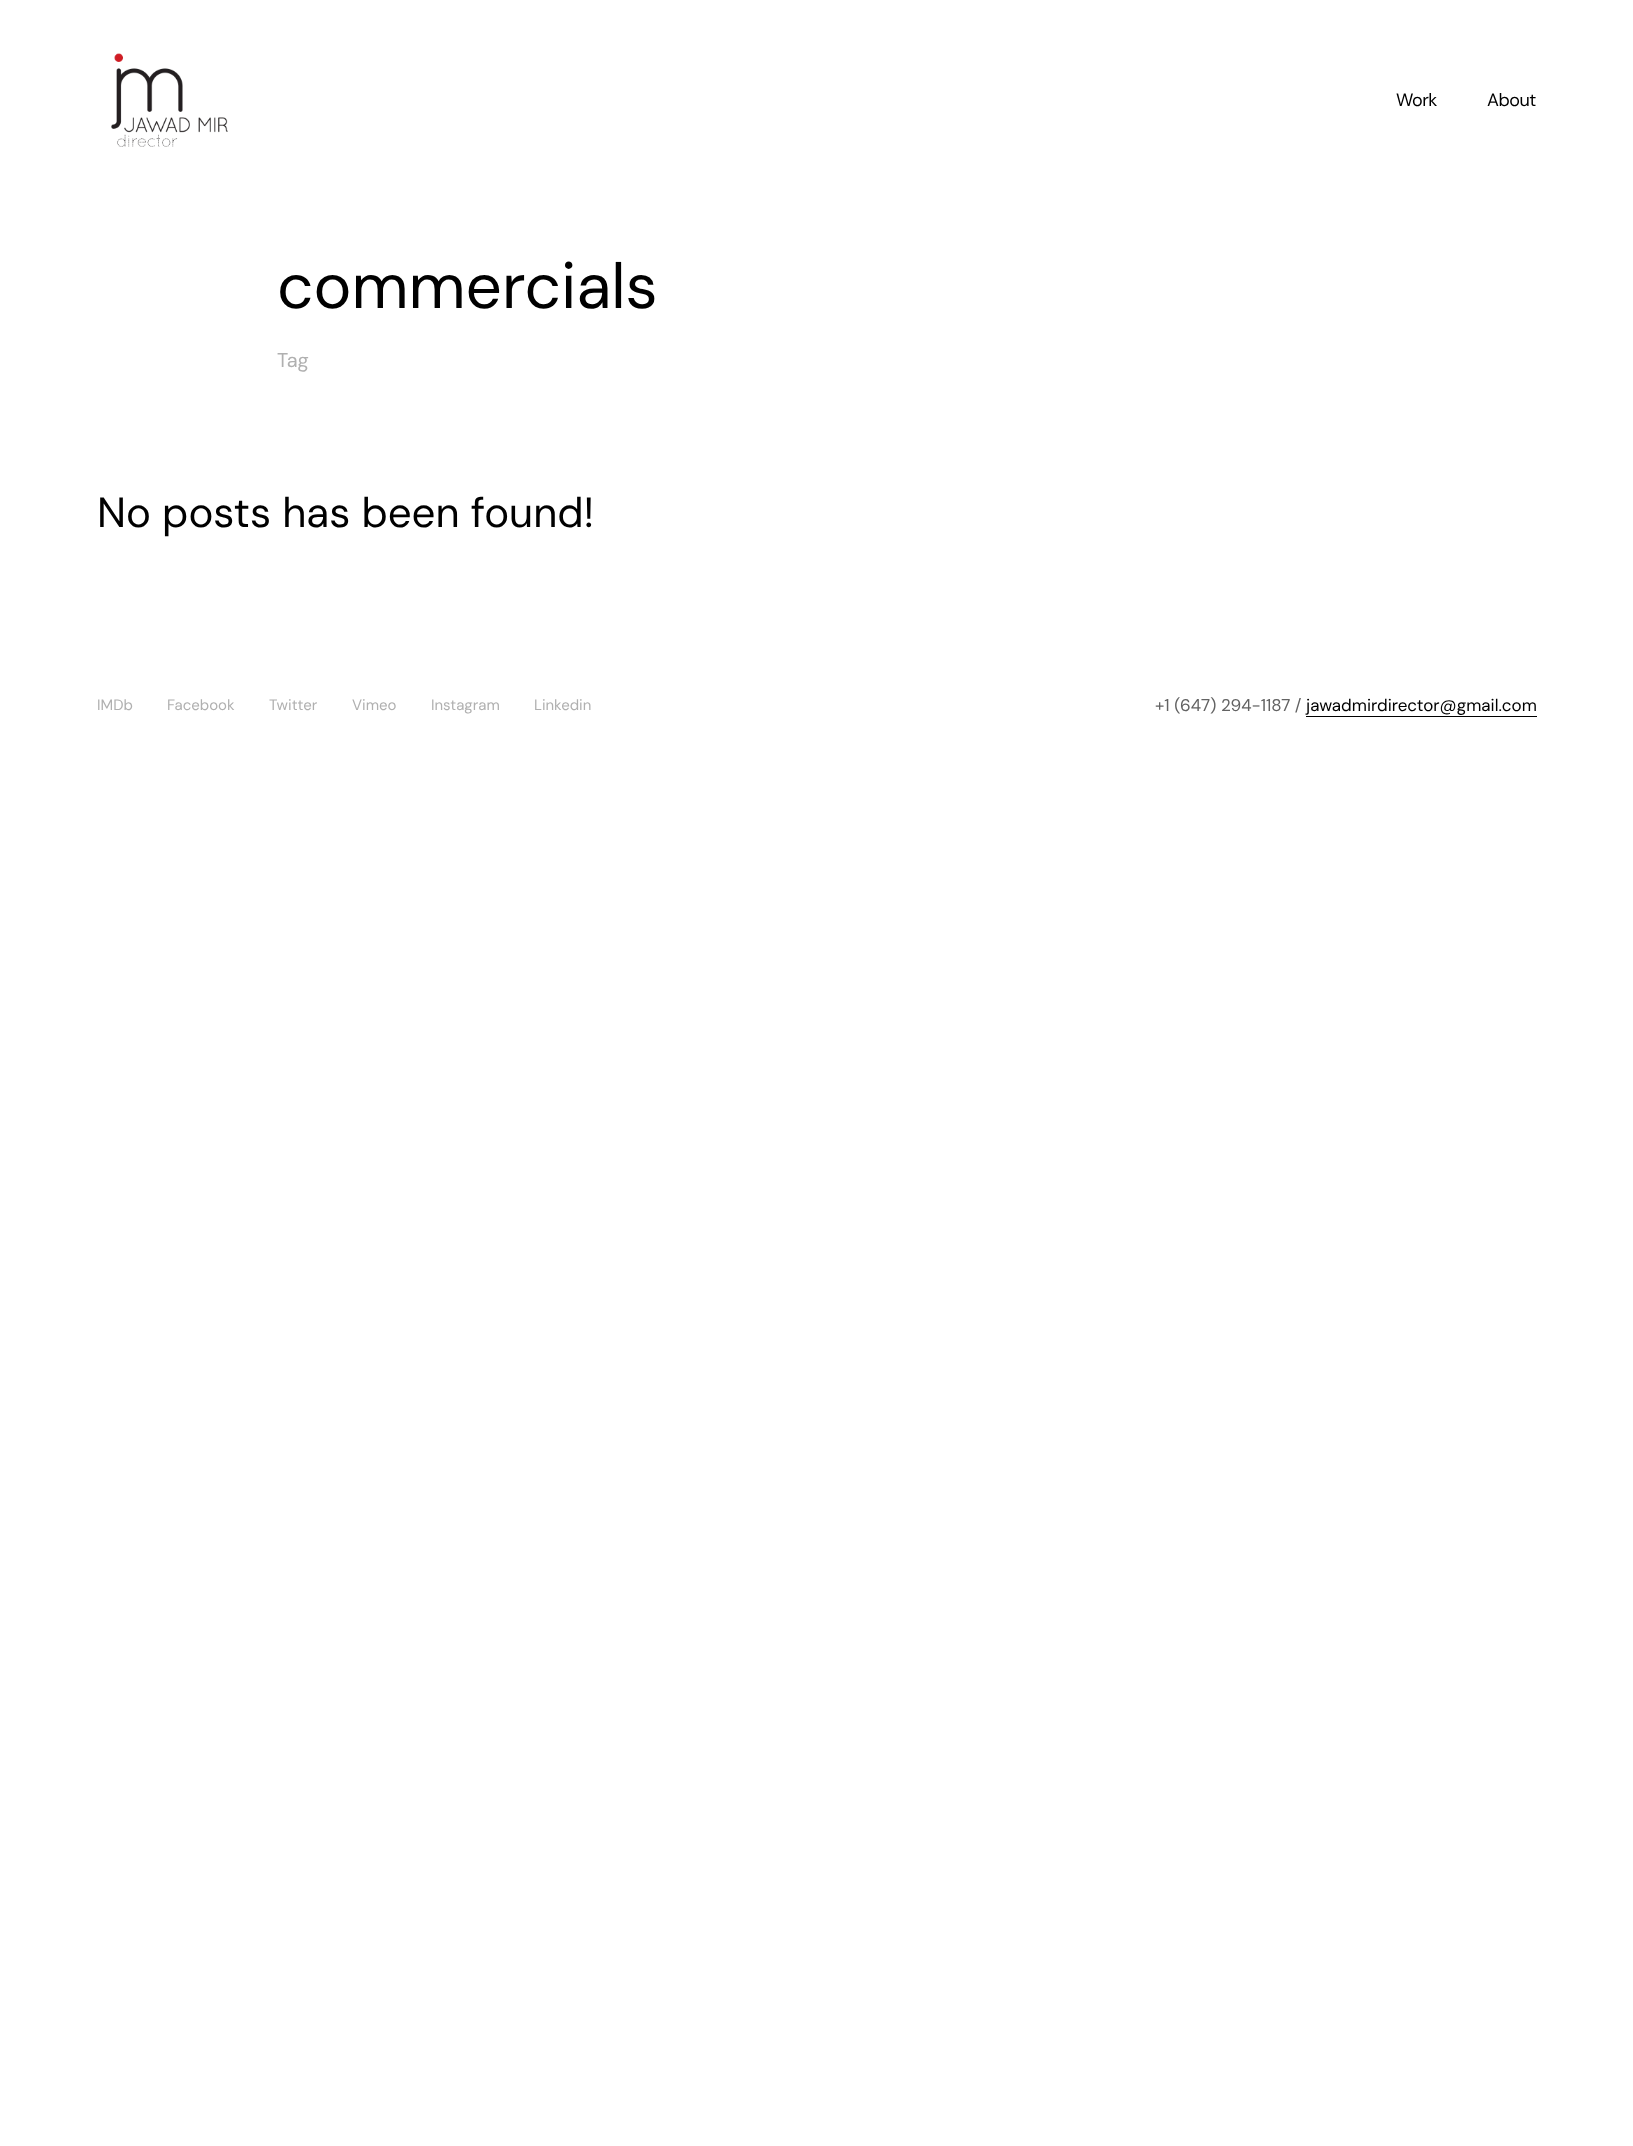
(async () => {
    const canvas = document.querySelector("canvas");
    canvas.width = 1633;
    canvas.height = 2146;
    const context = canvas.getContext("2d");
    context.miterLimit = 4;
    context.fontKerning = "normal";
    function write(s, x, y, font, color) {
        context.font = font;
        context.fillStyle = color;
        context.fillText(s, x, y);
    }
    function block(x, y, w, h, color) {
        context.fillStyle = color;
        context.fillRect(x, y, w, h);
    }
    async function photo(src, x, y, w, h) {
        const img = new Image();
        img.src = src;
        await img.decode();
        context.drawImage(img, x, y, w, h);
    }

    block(0, 0, 1633, 2146, "rgb(255, 255, 255)");
    await photo("media/1.png", 111, 53, 117, 94);
    context.letterSpacing = "-0.5px";
    write("Work", 1396, 106, "18px DM Sans", "rgb(0, 0, 0)");
    write("About", 1487, 106, "18px DM Sans", "rgb(0, 0, 0)");
    context.letterSpacing = "0px";
    write("commercials", 277, 308, "64px DM Sans", "rgb(0, 0, 0)");
    write("Tag", 277, 367, "20px DM Sans", "rgb(176, 176, 176)");
    write("No posts has been found!", 97, 527, "42px DM Sans", "rgb(0, 0, 0)");
    write("IMDb", 97, 710, "15px DM Sans", "rgb(176, 176, 176)");
    write("Facebook", 167, 710, "15px DM Sans", "rgb(176, 176, 176)");
    write("Twitter", 269, 710, "15px DM Sans", "rgb(176, 176, 176)");
    write("Vimeo", 352, 710, "15px DM Sans", "rgb(176, 176, 176)");
    write("Instagram", 431, 710, "15px DM Sans", "rgb(176, 176, 176)");
    write("Linkedin", 534, 710, "15px DM Sans", "rgb(176, 176, 176)");
    write("+1 (647) 294-1187 /", 1155, 711, "17px DM Sans", "rgb(99, 99, 99)");
    write("jawadmirdirector@gmail.com", 1306, 711, "17px DM Sans", "rgb(0, 0, 0)");
    block(1306, 716, 231, 1, "rgb(0, 0, 0)");
})();
